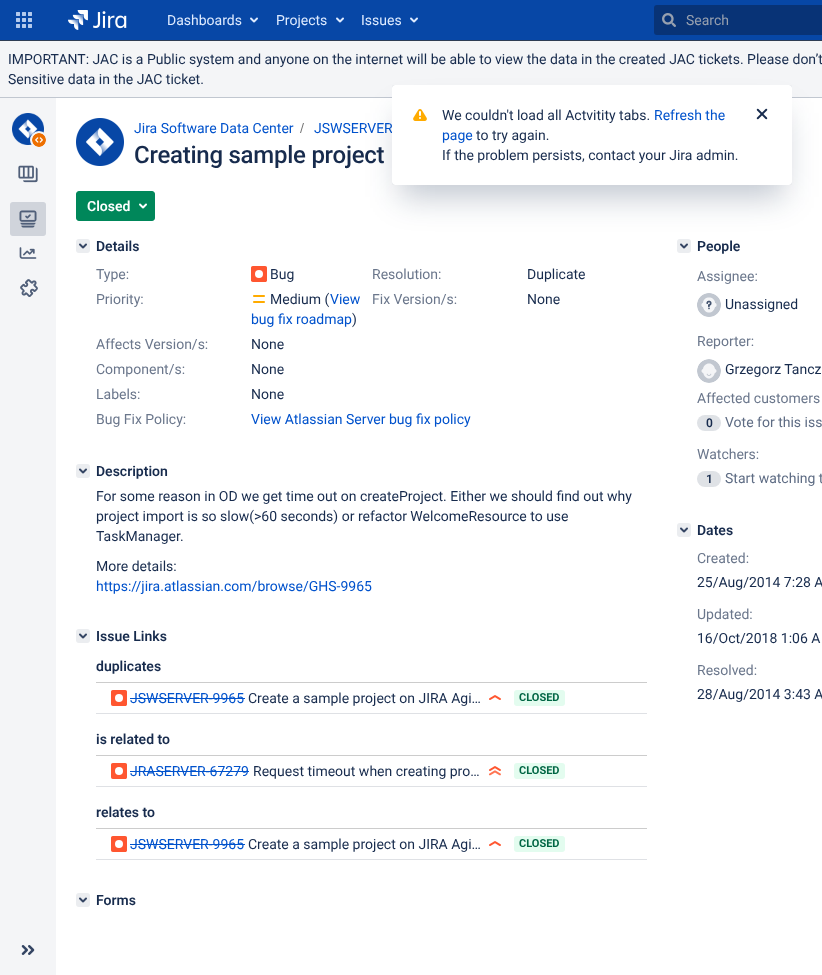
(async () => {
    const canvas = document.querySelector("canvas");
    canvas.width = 822;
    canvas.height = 975;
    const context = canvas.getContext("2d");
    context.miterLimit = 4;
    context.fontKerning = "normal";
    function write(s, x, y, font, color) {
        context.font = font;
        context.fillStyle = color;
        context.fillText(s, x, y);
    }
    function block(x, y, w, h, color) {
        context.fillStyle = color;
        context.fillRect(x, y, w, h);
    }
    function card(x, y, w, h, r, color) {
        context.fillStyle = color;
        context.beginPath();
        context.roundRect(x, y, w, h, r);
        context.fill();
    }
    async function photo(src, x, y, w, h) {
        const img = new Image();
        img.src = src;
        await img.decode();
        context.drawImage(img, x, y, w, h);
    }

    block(0, 0, 822, 975, "rgb(244, 245, 247)");
    block(0, 0, 822, 40, "rgb(7, 71, 166)");
    block(0, 40, 822, 1, "rgb(46, 61, 84)");
    await photo("media/1.png", 16, 12, 16, 16);
    await photo("media/2.png", 68, 10, 59, 20);
    write("Dashboards", 167, 25, "14px Roboto", "rgb(222, 235, 255)");
    await photo("media/3.png", 250, 17, 8, 6);
    write("Projects", 276, 25, "14px Roboto", "rgb(222, 235, 255)");
    await photo("media/3.png", 336, 17, 8, 6);
    write("Issues", 361, 25, "14px Roboto", "rgb(222, 235, 255)");
    await photo("media/3.png", 410, 17, 8, 6);
    card(654, 5, 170, 30, 3, "rgb(8, 51, 118)");
    await photo("media/4.png", 662, 13, 14, 14);
    write("Search", 686, 25, "14px Roboto", "rgb(151, 160, 175)");
    block(0, 97, 822, 1, "rgb(193, 199, 208)");
    write("IMPORTANT: JAC is a Public system and anyone on the internet will be able to view the data in the created JAC tickets. Please don’t", 8, 64, "14px Roboto", "rgb(23, 43, 77)");
    write("Sensitive data in the JAC ticket.", 8, 84, "14px Roboto", "rgb(23, 43, 77)");
    await photo("media/5.png", 12, 113, 32, 32);
    context.fillStyle = "rgb(244, 245, 247)";
    context.beginPath();
    context.arc(39, 140, 9, 0, Math.PI * 2);
    context.fill();
    await photo("media/6.png", 32, 133, 14, 14);
    await photo("media/7.png", 18, 165, 20, 18);
    card(10, 202, 36, 34, 3, "rgb(225, 228, 233)");
    card(10, 202, 36, 34, 3, "rgba(9, 30, 66, 0.08)");
    await photo("media/8.png", 19, 210, 18, 18);
    await photo("media/9.png", 19, 247, 18, 12);
    await photo("media/10.png", 20, 279, 18, 18);
    await photo("media/11.png", 21, 945, 14, 10);
    block(56, 98, 766, 877, "rgb(255, 255, 255)");
    await photo("media/12.png", 76, 118, 48, 48);
    write("Jira Software Data Center", 134, 133, "14px Roboto", "rgb(0, 82, 204)");
    context.fillStyle = "rgb(112, 112, 112)";
    context.beginPath();
    context.moveTo(301, 133);
    context.lineTo(304, 123);
    context.lineTo(303, 123);
    context.lineTo(300, 133);
    context.closePath();
    context.fill();
    write("JSWSERVER", 314, 133, "14px Roboto", "rgb(0, 82, 204)");
    context.letterSpacing = "-0.25px";
    write("Creating sample project", 134, 163, "500 24px Roboto", "rgb(23, 43, 77)");
    context.fillStyle = "rgb(0, 135, 90)";
    context.beginPath();
    context.roundRect(76.5, 191.5, 78, 29, 2.5);
    context.fill();
    context.strokeStyle = "rgb(0, 135, 90)";
    context.stroke();
    context.letterSpacing = "0px";
    write("Closed", 87, 211, "600 14px Roboto", "rgb(255, 255, 255)");
    await photo("media/13.png", 139, 203, 8, 6);
    card(76, 239, 14, 14, 3, "rgb(235, 237, 240)");
    await photo("media/14.png", 79, 243, 8, 6);
    write("Details", 96, 251, "600 14px Roboto", "rgb(23, 43, 77)");
    write("Type:", 96, 279, "14px Roboto", "rgb(107, 119, 140)");
    await photo("media/15.png", 251, 266, 16, 16);
    write("Bug", 270, 279, "14px Roboto", "rgb(23, 43, 77)");
    write("Resolution:", 372, 279, "14px Roboto", "rgb(107, 119, 140)");
    write("Duplicate", 527, 279, "14px Roboto", "rgb(23, 43, 77)");
    write("Priority:", 96, 304, "14px Roboto", "rgb(107, 119, 140)");
    await photo("media/16.png", 253, 295, 12, 8);
    write("Medium (", 270, 304, "14px Roboto", "rgb(23, 43, 77)");
    write("View", 330, 304, "14px Roboto", "rgb(0, 82, 204)");
    write("bug fix roadmap", 251, 324, "14px Roboto", "rgb(0, 82, 204)");
    write(")", 352, 324, "14px Roboto", "rgb(23, 43, 77)");
    write("Fix Version/s:", 372, 304, "14px Roboto", "rgb(107, 119, 140)");
    write("None", 527, 304, "14px Roboto", "rgb(23, 43, 77)");
    write("Affects Version/s:", 96, 349, "14px Roboto", "rgb(107, 119, 140)");
    write("None", 251, 349, "14px Roboto", "rgb(23, 43, 77)");
    write("Component/s:", 96, 374, "14px Roboto", "rgb(107, 119, 140)");
    write("None", 251, 374, "14px Roboto", "rgb(23, 43, 77)");
    write("Labels:", 96, 399, "14px Roboto", "rgb(107, 119, 140)");
    write("None", 251, 399, "14px Roboto", "rgb(23, 43, 77)");
    write("Bug Fix Policy:", 96, 424, "14px Roboto", "rgb(107, 119, 140)");
    write("View Atlassian Server bug fix policy", 251, 424, "14px Roboto", "rgb(0, 82, 204)");
    card(76, 464, 14, 14, 3, "rgb(235, 237, 240)");
    await photo("media/14.png", 79, 468, 8, 6);
    write("Description", 96, 476, "600 14px Roboto", "rgb(23, 43, 77)");
    write("For some reason in OD we get time out on createProject. Either we should find out why", 96, 501, "14px Roboto", "rgb(23, 43, 77)");
    write("project import is so slow(>60 seconds) or refactor WelcomeResource to use", 96, 521, "14px Roboto", "rgb(23, 43, 77)");
    write("TaskManager.", 96, 541, "14px Roboto", "rgb(23, 43, 77)");
    write("More details:", 96, 571, "14px Roboto", "rgb(23, 43, 77)");
    write("https://jira.atlassian.com/browse/GHS-9965", 96, 591, "14px Roboto", "rgb(0, 82, 204)");
    card(76, 629, 14, 14, 3, "rgb(235, 237, 240)");
    await photo("media/14.png", 79, 633, 8, 6);
    write("Issue Links", 96, 641, "600 14px Roboto", "rgb(23, 43, 77)");
    write("duplicates", 96, 671, "600 14px Roboto", "rgb(23, 43, 77)");
    block(96, 682, 551, 1, "rgb(204, 204, 204)");
    block(96, 713, 551, 1, "rgb(223, 225, 229)");
    await photo("media/17.png", 111, 690, 16, 16);
    write("JSWSERVER-9965", 130, 703, "14px Roboto", "rgb(0, 82, 204)");
    block(130, 698, 115, 1, "rgb(0, 82, 204)");
    write("Create a sample project on JIRA Agi…", 248, 703, "14px Roboto", "rgb(23, 43, 77)");
    await photo("media/18.png", 489, 695, 12, 5);
    card(514, 690, 51, 16, 3, "rgb(227, 252, 239)");
    write("CLOSED", 519, 701, "bold 11px Roboto", "rgb(0, 102, 68)");
    write("is related to", 96, 744, "600 14px Roboto", "rgb(23, 43, 77)");
    block(96, 755, 551, 1, "rgb(204, 204, 204)");
    block(96, 786, 551, 1, "rgb(223, 225, 229)");
    await photo("media/17.png", 111, 763, 16, 16);
    write("JRASERVER-67279", 130, 776, "14px Roboto", "rgb(0, 82, 204)");
    block(130, 771, 119, 1, "rgb(0, 82, 204)");
    write("Request timeout when creating pro…", 253, 776, "14px Roboto", "rgb(23, 43, 77)");
    await photo("media/19.png", 488, 766, 13, 10);
    card(514, 763, 51, 16, 3, "rgb(227, 252, 239)");
    write("CLOSED", 519, 774, "bold 11px Roboto", "rgb(0, 102, 68)");
    write("relates to", 96, 817, "600 14px Roboto", "rgb(23, 43, 77)");
    block(96, 828, 551, 1, "rgb(204, 204, 204)");
    block(96, 859, 551, 1, "rgb(223, 225, 229)");
    await photo("media/17.png", 111, 836, 16, 16);
    write("JSWSERVER-9965", 130, 849, "14px Roboto", "rgb(0, 82, 204)");
    block(130, 844, 115, 1, "rgb(0, 82, 204)");
    write("Create a sample project on JIRA Agi…", 248, 849, "14px Roboto", "rgb(23, 43, 77)");
    await photo("media/18.png", 489, 841, 12, 5);
    card(514, 836, 51, 16, 3, "rgb(227, 252, 239)");
    write("CLOSED", 519, 847, "bold 11px Roboto", "rgb(0, 102, 68)");
    card(76, 893, 14, 14, 3, "rgb(235, 237, 240)");
    await photo("media/14.png", 79, 897, 8, 6);
    write("Forms", 96, 905, "600 14px Roboto", "rgb(23, 43, 77)");
    card(677, 239, 14, 14, 3, "rgb(235, 237, 240)");
    await photo("media/14.png", 680, 243, 8, 6);
    write("People", 697, 251, "600 14px Roboto", "rgb(23, 43, 77)");
    write("Assignee:", 697, 281, "14px Roboto", "rgb(107, 119, 140)");
    await photo("media/20.png", 697, 293, 24, 24);
    write("Unassigned", 725, 309, "14px Roboto", "rgb(23, 43, 77)");
    write("Reporter:", 697, 346, "14px Roboto", "rgb(107, 119, 140)");
    await photo("media/21.png", 697, 359, 24, 24);
    write("Grzegorz Tancz", 725, 374, "14px Roboto", "rgb(23, 43, 77)");
    write("Affected customers", 697, 403, "14px Roboto", "rgb(107, 119, 140)");
    card(697, 415, 24, 16, 8, "rgb(223, 226, 230)");
    write("0", 706, 427, "600 12px Roboto", "rgb(23, 43, 77)");
    write("Vote for this iss", 725, 427, "14px Roboto", "rgb(94, 108, 132)");
    write("Watchers:", 697, 459, "14px Roboto", "rgb(107, 119, 140)");
    card(697, 471, 24, 16, 8, "rgb(223, 226, 230)");
    write("1", 706, 483, "600 12px Roboto", "rgb(23, 43, 77)");
    write("Start watching t", 725, 483, "14px Roboto", "rgb(94, 108, 132)");
    card(677, 523, 14, 14, 3, "rgb(235, 237, 240)");
    await photo("media/14.png", 680, 527, 8, 6);
    write("Dates", 697, 535, "600 14px Roboto", "rgb(23, 43, 77)");
    write("Created:", 697, 563, "14px Roboto", "rgb(107, 119, 140)");
    write("25/Aug/2014 7:28 A", 697, 587, "14px Roboto", "rgb(23, 43, 77)");
    write("Updated:", 697, 619, "14px Roboto", "rgb(107, 119, 140)");
    write("16/Oct/2018 1:06 A", 697, 643, "14px Roboto", "rgb(23, 43, 77)");
    write("Resolved:", 697, 675, "14px Roboto", "rgb(107, 119, 140)");
    write("28/Aug/2014 3:43 A", 697, 699, "14px Roboto", "rgb(23, 43, 77)");
    context.fillStyle = "rgba(9, 30, 66, 0.25)";
    context.filter = "blur(0.5px)";
    context.beginPath();
    context.roundRect(392, 85, 400, 100, 3);
    context.fill();
    context.filter = "none";
    context.filter = "blur(16px)";
    context.beginPath();
    context.rect(400, 113, 384, 84);
    context.fill();
    context.filter = "none";
    card(392, 85, 400, 100, 3, "rgb(255, 255, 255)");
    await photo("media/22.png", 413, 109, 14, 12);
    write("We couldn't load all Actvitity tabs.", 442, 120, "14px Roboto", "rgb(23, 43, 77)");
    write("Refresh the", 654, 120, "14px Roboto", "rgb(0, 82, 204)");
    await photo("media/23.png", 756, 108, 12, 12);
    write("page", 442, 140, "14px Roboto", "rgb(0, 82, 204)");
    write("to try again.", 476, 140, "14px Roboto", "rgb(23, 43, 77)");
    write("If the problem persists, contact your Jira admin.", 442, 160, "14px Roboto", "rgb(23, 43, 77)");
})();
